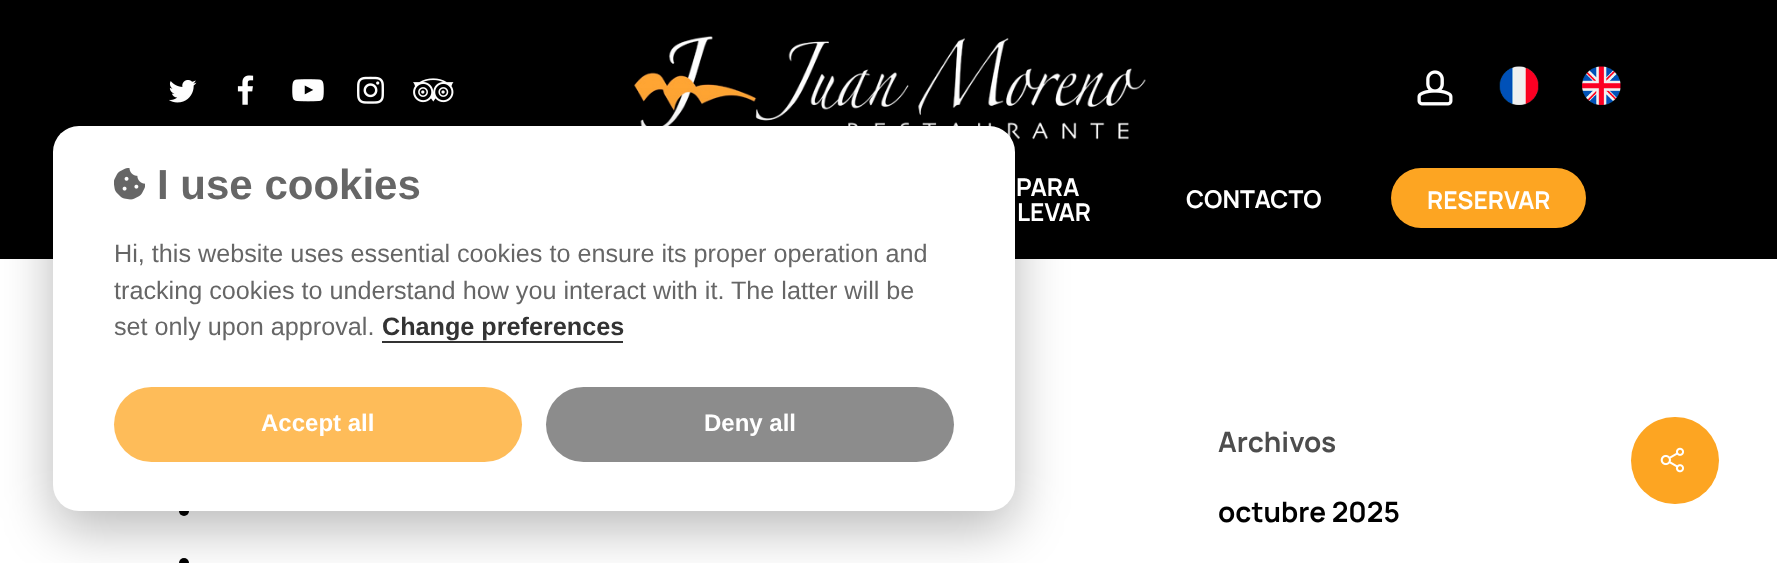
(async () => {
    const canvas = document.querySelector("canvas");
    canvas.width = 1777;
    canvas.height = 563;
    const context = canvas.getContext("2d");
    context.miterLimit = 4;
    context.fontKerning = "normal";
    function write(s, x, y, font, color) {
        context.font = font;
        context.fillStyle = color;
        context.fillText(s, x, y);
    }
    function block(x, y, w, h, color) {
        context.fillStyle = color;
        context.fillRect(x, y, w, h);
    }
    function card(x, y, w, h, r, color) {
        context.fillStyle = color;
        context.beginPath();
        context.roundRect(x, y, w, h, r);
        context.fill();
    }
    async function photo(src, x, y, w, h) {
        const img = new Image();
        img.src = src;
        await img.decode();
        context.drawImage(img, x, y, w, h);
    }

    block(0, 0, 1777, 563, "rgb(255, 255, 255)");
    block(0, 0, 1777, 259, "rgb(0, 0, 0)");
    await photo("media/2.png", 169, 80, 28, 23);
    await photo("media/3.png", 237, 75, 17, 30);
    await photo("media/4.png", 292, 79, 32, 23);
    await photo("media/5.png", 357, 76, 27, 28);
    await photo("media/6.png", 413, 78, 41, 25);
    await photo("media/7.png", 634, 36, 512, 104);
    context.beginPath();
    context.arc(184, 511, 5, 0, Math.PI * 2);
    context.fill();
    context.beginPath();
    context.arc(184, 563, 5, 0, Math.PI * 2);
    context.fill();
    context.fillStyle = "rgba(2, 2, 3, 0.28)";
    context.filter = "blur(26px)";
    context.beginPath();
    context.roundRect(53, 144, 962, 385, 26);
    context.fill();
    context.filter = "none";
    card(53, 126, 962, 385, 26, "rgb(255, 255, 255)");
    await photo("media/1.png", 114, 168, 31, 32);
    write("I use cookies", 157, 199, "bold 42px Liberation Sans", "rgb(102, 102, 102)");
    write("Hi, this website uses essential cookies to ensure its proper operation and", 114, 262, "25.2px Liberation Sans", "rgb(102, 102, 102)");
    write("tracking cookies to understand how you interact with it. The latter will be", 114, 299, "25.2px Liberation Sans", "rgb(102, 102, 102)");
    write("set only upon approval.", 114, 335, "25.2px Liberation Sans", "rgb(102, 102, 102)");
    write("Change preferences", 382, 335, "bold 25.2px Liberation Sans", "rgb(51, 51, 51)");
    block(382, 341, 241, 2, "rgb(51, 51, 51)");
    card(114, 387, 408, 75, 37.5, "rgb(254, 188, 89)");
    write("Accept all", 261, 431, "bold 24px Liberation Sans", "rgb(255, 255, 255)");
    card(546, 387, 408, 75, 37.5, "rgb(140, 140, 140)");
    write("Deny all", 704, 431, "bold 24px Liberation Sans", "rgb(255, 255, 255)");
    await photo("media/8.png", 1417, 70, 36, 36);
    await photo("media/9.png", 1499, 66, 40, 39);
    await photo("media/10.png", 1582, 66, 39, 39);
    write("PARA", 1016, 196, "bold 24.5px Manrope", "rgb(255, 255, 255)");
    write("LEVAR", 1017, 221, "bold 24.5px Manrope", "rgb(255, 255, 255)");
    write("CONTACTO", 1186, 208, "bold 24.5px Manrope", "rgb(255, 255, 255)");
    card(1391, 168, 195, 60, 30, "rgb(253, 165, 34)");
    write("RESERVAR", 1427, 209, "bold 24.5px Manrope", "rgb(255, 255, 255)");
    write("Archivos", 1218, 452, "bold 28px Manrope", "rgb(77, 77, 77)");
    write("octubre 2025", 1218, 522, "bold 28px Manrope", "rgb(0, 0, 0)");
    card(1631, 417, 88, 87, 43.5, "rgb(253, 165, 34)");
    await photo("media/11.png", 1660, 447, 24, 26);
})();
